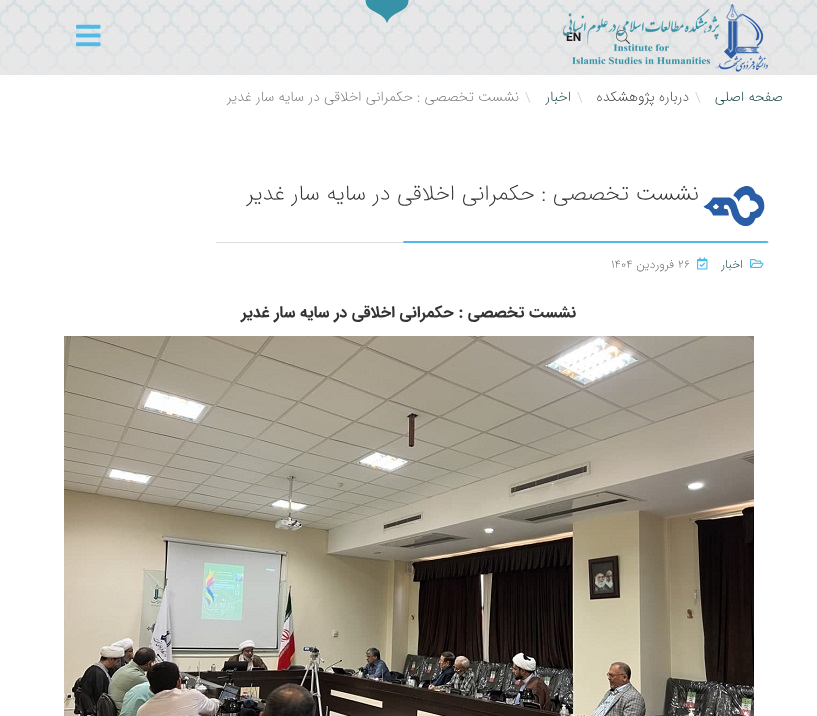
(async () => {
    const canvas = document.querySelector("canvas");
    canvas.width = 817;
    canvas.height = 716;
    const context = canvas.getContext("2d");
    context.miterLimit = 4;
    context.fontKerning = "normal";
    function write(s, x, y, font, color) {
        context.font = font;
        context.fillStyle = color;
        context.fillText(s, x, y);
    }
    function block(x, y, w, h, color) {
        context.fillStyle = color;
        context.fillRect(x, y, w, h);
    }
    function card(x, y, w, h, r, color) {
        context.fillStyle = color;
        context.beginPath();
        context.roundRect(x, y, w, h, r);
        context.fill();
    }
    async function photo(src, x, y, w, h) {
        const img = new Image();
        img.src = src;
        await img.decode();
        context.drawImage(img, x, y, w, h);
    }

    block(0, 0, 817, 716, "rgb(255, 255, 255)");
    await photo("media/1.png", 0, 0, 817, 75);
    await photo("media/2.png", 365, 0, 44, 23);
    await photo("media/5.png", 615, 30, 15, 15);
    write("EN", 566, 41, "bold 12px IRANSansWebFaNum", "rgb(26, 26, 26)");
    await photo("media/3.png", 563, 4, 205, 68);
    await photo("media/4.png", 76, 24, 25, 23);
    context.direction = "rtl";
    write("صفحه اصلی", 783, 101, "200 14px IRANSansWebFaNum", "rgb(4, 54, 53)");
    context.direction = "ltr";
    write("\\", 695, 102, "200 14px IRANSansWebFaNum", "rgb(204, 204, 204)");
    context.direction = "rtl";
    write("درباره پژوهشکده", 689, 101, "200 14px IRANSansWebFaNum", "rgb(51, 51, 51)");
    context.direction = "ltr";
    write("\\", 577, 102, "200 14px IRANSansWebFaNum", "rgb(204, 204, 204)");
    context.direction = "rtl";
    write("اخبار", 571, 101, "200 14px IRANSansWebFaNum", "rgb(4, 54, 53)");
    context.direction = "ltr";
    write("\\", 525, 102, "200 14px IRANSansWebFaNum", "rgb(204, 204, 204)");
    context.direction = "rtl";
    write("نشست تخصصی : حکمرانی اخلاقی در سایه سار غدیر", 519, 101, "200 14px IRANSansWebFaNum", "rgb(119, 119, 119)");
    block(216, 242, 553, 1, "rgb(221, 221, 221)");
    await photo("media/6.png", 703, 186, 62, 40);
    write("نشست تخصصی : حکمرانی اخلاقی در سایه سار غدیر", 699, 200, "200 21.7px IRANSansWebFaNum", "rgb(51, 51, 51)");
    card(403, 241, 365, 2, 1, "rgb(79, 186, 231)");
    await photo("media/7.png", 750, 259, 14, 9);
    write("اخبار", 743, 268, "200 12px IRANSansWebFaNum", "rgb(4, 54, 53)");
    await photo("media/8.png", 697, 257, 11, 13);
    context.direction = "ltr";
    write("26", 678, 268, "200 12px IRANSansWebFaNum", "rgb(102, 102, 102)");
    context.direction = "rtl";
    write("فروردين", 674, 268, "200 12px IRANSansWebFaNum", "rgb(102, 102, 102)");
    context.direction = "ltr";
    write("1404", 611, 268, "200 12px IRANSansWebFaNum", "rgb(102, 102, 102)");
    context.direction = "rtl";
    write("نشست تخصصی : حکمرانی اخلاقی در سایه سار غدیر", 576, 317, "bold 16px IRANSansWebFaNum", "rgb(51, 51, 51)");
    await photo("media/9.png", 64, 336, 690, 380);
})();
